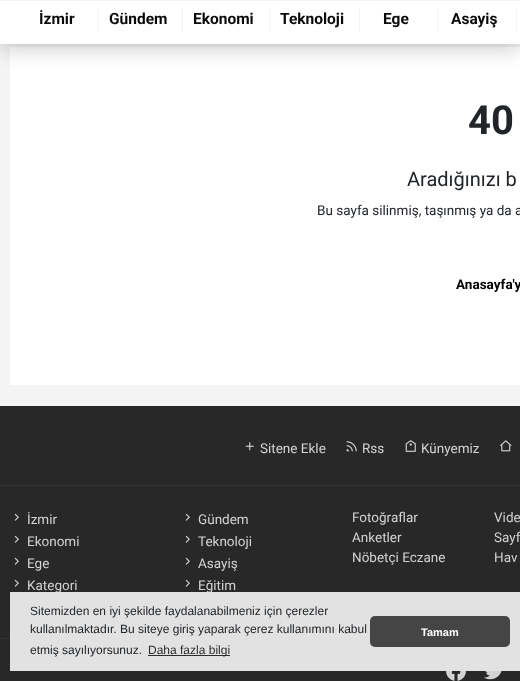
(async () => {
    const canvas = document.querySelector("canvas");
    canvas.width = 520;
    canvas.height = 681;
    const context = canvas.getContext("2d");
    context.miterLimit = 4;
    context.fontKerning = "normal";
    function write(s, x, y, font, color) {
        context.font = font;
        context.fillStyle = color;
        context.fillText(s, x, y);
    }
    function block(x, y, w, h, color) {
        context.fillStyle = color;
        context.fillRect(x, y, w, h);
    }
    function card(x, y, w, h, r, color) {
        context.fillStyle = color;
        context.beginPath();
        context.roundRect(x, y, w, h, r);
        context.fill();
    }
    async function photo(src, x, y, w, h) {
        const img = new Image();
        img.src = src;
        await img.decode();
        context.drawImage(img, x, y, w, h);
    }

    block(0, 0, 520, 681, "rgb(244, 244, 244)");
    block(10, 47, 510, 338, "rgb(255, 255, 255)");
    context.fillStyle = "rgba(0, 0, 0, 0.2)";
    context.filter = "blur(10px)";
    context.beginPath();
    context.rect(0, 5, 520, 44);
    context.fill();
    context.filter = "none";
    block(0, 1, 520, 43, "rgb(255, 255, 255)");
    block(0, 0, 520, 1, "rgb(243, 243, 243)");
    block(98, 8, 1, 24, "rgb(243, 243, 243)");
    write("İzmir", 39, 24, "bold 15.5px Roboto", "rgb(10, 10, 10)");
    block(182, 8, 1, 24, "rgb(243, 243, 243)");
    write("Gündem", 109, 24, "bold 15.5px Roboto", "rgb(10, 10, 10)");
    block(269, 8, 1, 24, "rgb(243, 243, 243)");
    write("Ekonomi", 193, 24, "bold 15.5px Roboto", "rgb(10, 10, 10)");
    block(359, 8, 1, 24, "rgb(243, 243, 243)");
    write("Teknoloji", 280, 24, "bold 15.5px Roboto", "rgb(10, 10, 10)");
    block(437, 8, 1, 24, "rgb(243, 243, 243)");
    write("Ege", 383, 24, "bold 15.5px Roboto", "rgb(10, 10, 10)");
    block(516, 8, 1, 24, "rgb(243, 243, 243)");
    write("Asayiş", 451, 24, "bold 15.5px Roboto", "rgb(10, 10, 10)");
    write("40", 468, 134, "bold 40px Roboto", "rgb(33, 37, 41)");
    write("Aradığınızı b", 407, 186, "20px Roboto", "rgb(33, 37, 41)");
    write("Bu sayfa silinmiş, taşınmış ya da a", 317, 215, "13.5px Roboto", "rgb(33, 37, 41)");
    write("Anasayfa'y", 456, 289, "bold 13.5px Roboto", "rgb(0, 0, 0)");
    block(0, 406, 520, 275, "rgb(40, 40, 40)");
    await photo("media/1.png", 245, 442, 9, 9);
    write("Sitene Ekle", 260, 453, "13.5px Roboto", "rgb(211, 211, 211)");
    await photo("media/2.png", 346, 441, 11, 11);
    write("Rss", 362, 453, "13.5px Roboto", "rgb(211, 211, 211)");
    await photo("media/3.png", 405, 440, 11, 12);
    write("Künyemiz", 421, 453, "13.5px Roboto", "rgb(211, 211, 211)");
    await photo("media/4.png", 499, 440, 13, 12);
    block(0, 485, 520, 1, "rgb(51, 51, 51)");
    block(0, 638, 10, 1, "rgb(51, 51, 51)");
    await photo("media/5.png", 14, 513, 5, 8);
    write("İzmir", 27, 524, "13.5px Roboto", "rgb(211, 211, 211)");
    await photo("media/5.png", 185, 513, 5, 8);
    write("Gündem", 198, 524, "13.5px Roboto", "rgb(211, 211, 211)");
    await photo("media/5.png", 14, 535, 5, 8);
    write("Ekonomi", 27, 546, "13.5px Roboto", "rgb(211, 211, 211)");
    await photo("media/5.png", 185, 535, 5, 8);
    write("Teknoloji", 198, 546, "13.5px Roboto", "rgb(211, 211, 211)");
    await photo("media/5.png", 14, 557, 5, 8);
    write("Ege", 27, 568, "13.5px Roboto", "rgb(211, 211, 211)");
    await photo("media/5.png", 185, 557, 5, 8);
    write("Asayiş", 198, 568, "13.5px Roboto", "rgb(211, 211, 211)");
    await photo("media/5.png", 14, 579, 5, 8);
    write("Kategori", 27, 590, "13.5px Roboto", "rgb(211, 211, 211)");
    await photo("media/5.png", 185, 579, 5, 8);
    write("Eğitim", 198, 590, "13.5px Roboto", "rgb(211, 211, 211)");
    write("Fotoğraflar", 352, 522, "13.5px Roboto", "rgb(211, 211, 211)");
    write("Vide", 494, 522, "13.5px Roboto", "rgb(211, 211, 211)");
    write("Anketler", 352, 542, "13.5px Roboto", "rgb(211, 211, 211)");
    write("Sayf", 494, 542, "13.5px Roboto", "rgb(211, 211, 211)");
    write("Nöbetçi Eczane", 352, 562, "13.5px Roboto", "rgb(211, 211, 211)");
    write("Hav", 494, 562, "13.5px Roboto", "rgb(211, 211, 211)");
    await photo("media/6.png", 446, 671, 20, 10);
    await photo("media/7.png", 484, 671, 18, 9);
    block(10, 592, 510, 79, "rgb(226, 226, 226)");
    write("Sitemizden en iyi şekilde faydalanabilmeniz için çerezler", 30, 615, "12px Liberation Sans", "rgb(33, 37, 41)");
    write("kullanılmaktadır. Bu siteye giriş yaparak çerez kullanımını kabul", 30, 633, "12px Liberation Sans", "rgb(33, 37, 41)");
    write("etmiş sayılıyorsunuz.", 30, 654, "12px Liberation Sans", "rgb(33, 37, 41)");
    block(148, 655, 82, 1, "rgb(45, 45, 45)");
    write("Daha fazla bilgi", 148, 654, "12px Liberation Sans", "rgb(45, 45, 45)");
    card(370, 616, 140, 31, 5, "rgb(69, 69, 69)");
    write("Tamam", 421, 636, "bold 11px Liberation Sans", "rgb(255, 255, 255)");
})();
